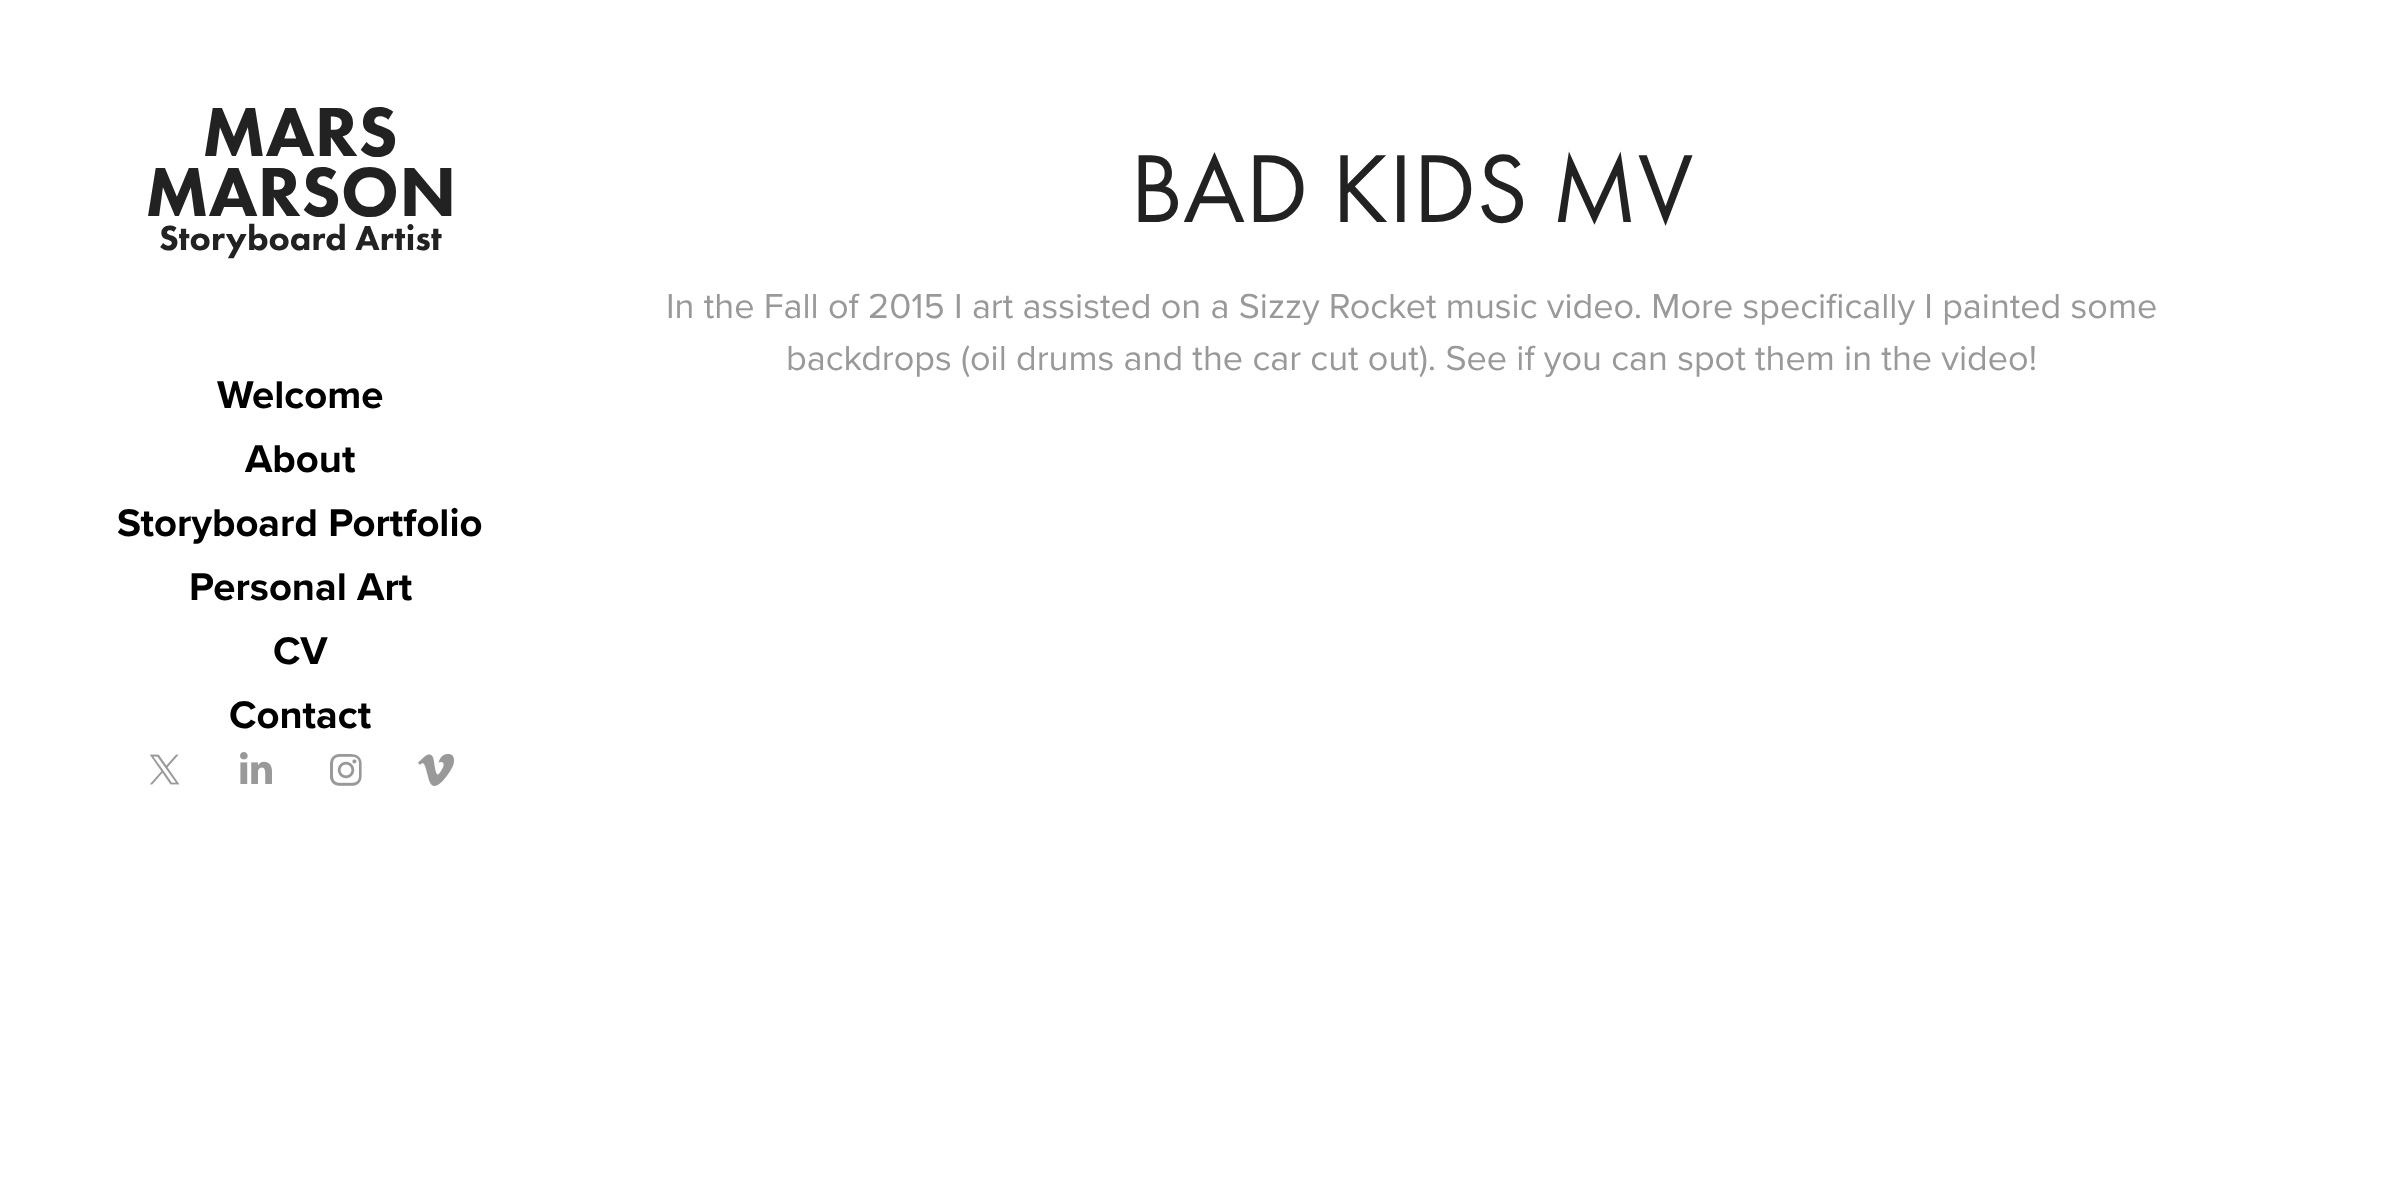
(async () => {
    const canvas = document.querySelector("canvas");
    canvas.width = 2401;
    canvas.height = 1193;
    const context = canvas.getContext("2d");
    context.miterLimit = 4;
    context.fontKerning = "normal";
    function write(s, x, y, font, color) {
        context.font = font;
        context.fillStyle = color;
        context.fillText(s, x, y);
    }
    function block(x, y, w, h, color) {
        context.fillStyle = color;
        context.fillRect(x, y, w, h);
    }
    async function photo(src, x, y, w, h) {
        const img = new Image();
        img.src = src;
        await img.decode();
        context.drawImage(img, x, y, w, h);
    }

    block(0, 0, 2401, 1193, "rgb(255, 255, 255)");
    write("MARS", 202, 156, "900 72px Futura PT", "rgb(34, 34, 34)");
    write("MARSON", 145, 216, "900 72px Futura PT", "rgb(34, 34, 34)");
    write("Storyboard Artist", 159, 250, "900 36px Futura PT", "rgb(34, 34, 34)");
    write("Welcome", 217, 408, "bold 40px Proxima Nova", "rgb(0, 0, 0)");
    write("About", 245, 472, "bold 40px Proxima Nova", "rgb(0, 0, 0)");
    write("Storyboard Portfolio", 117, 536, "bold 40px Proxima Nova", "rgb(0, 0, 0)");
    write("Personal Art", 189, 600, "bold 40px Proxima Nova", "rgb(0, 0, 0)");
    write("CV", 273, 664, "bold 40px Proxima Nova", "rgb(0, 0, 0)");
    write("Contact", 229, 728, "bold 40px Proxima Nova", "rgb(0, 0, 0)");
    await photo("media/1.png", 149, 754, 31, 31);
    await photo("media/2.png", 240, 752, 32, 32);
    await photo("media/3.png", 330, 754, 32, 32);
    await photo("media/4.png", 418, 753, 36, 33);
    write("BAD KIDS MV", 1130, 222, "100px Futura PT", "rgb(34, 34, 34)");
    write("In the Fall of 2015 I art assisted on a Sizzy Rocket music video. More specifically I painted some", 666, 318, "36px Proxima Nova", "rgb(153, 153, 153)");
    write("backdrops (oil drums and the car cut out). See if you can spot them in the video!", 786, 370, "36px Proxima Nova", "rgb(153, 153, 153)");
})();
